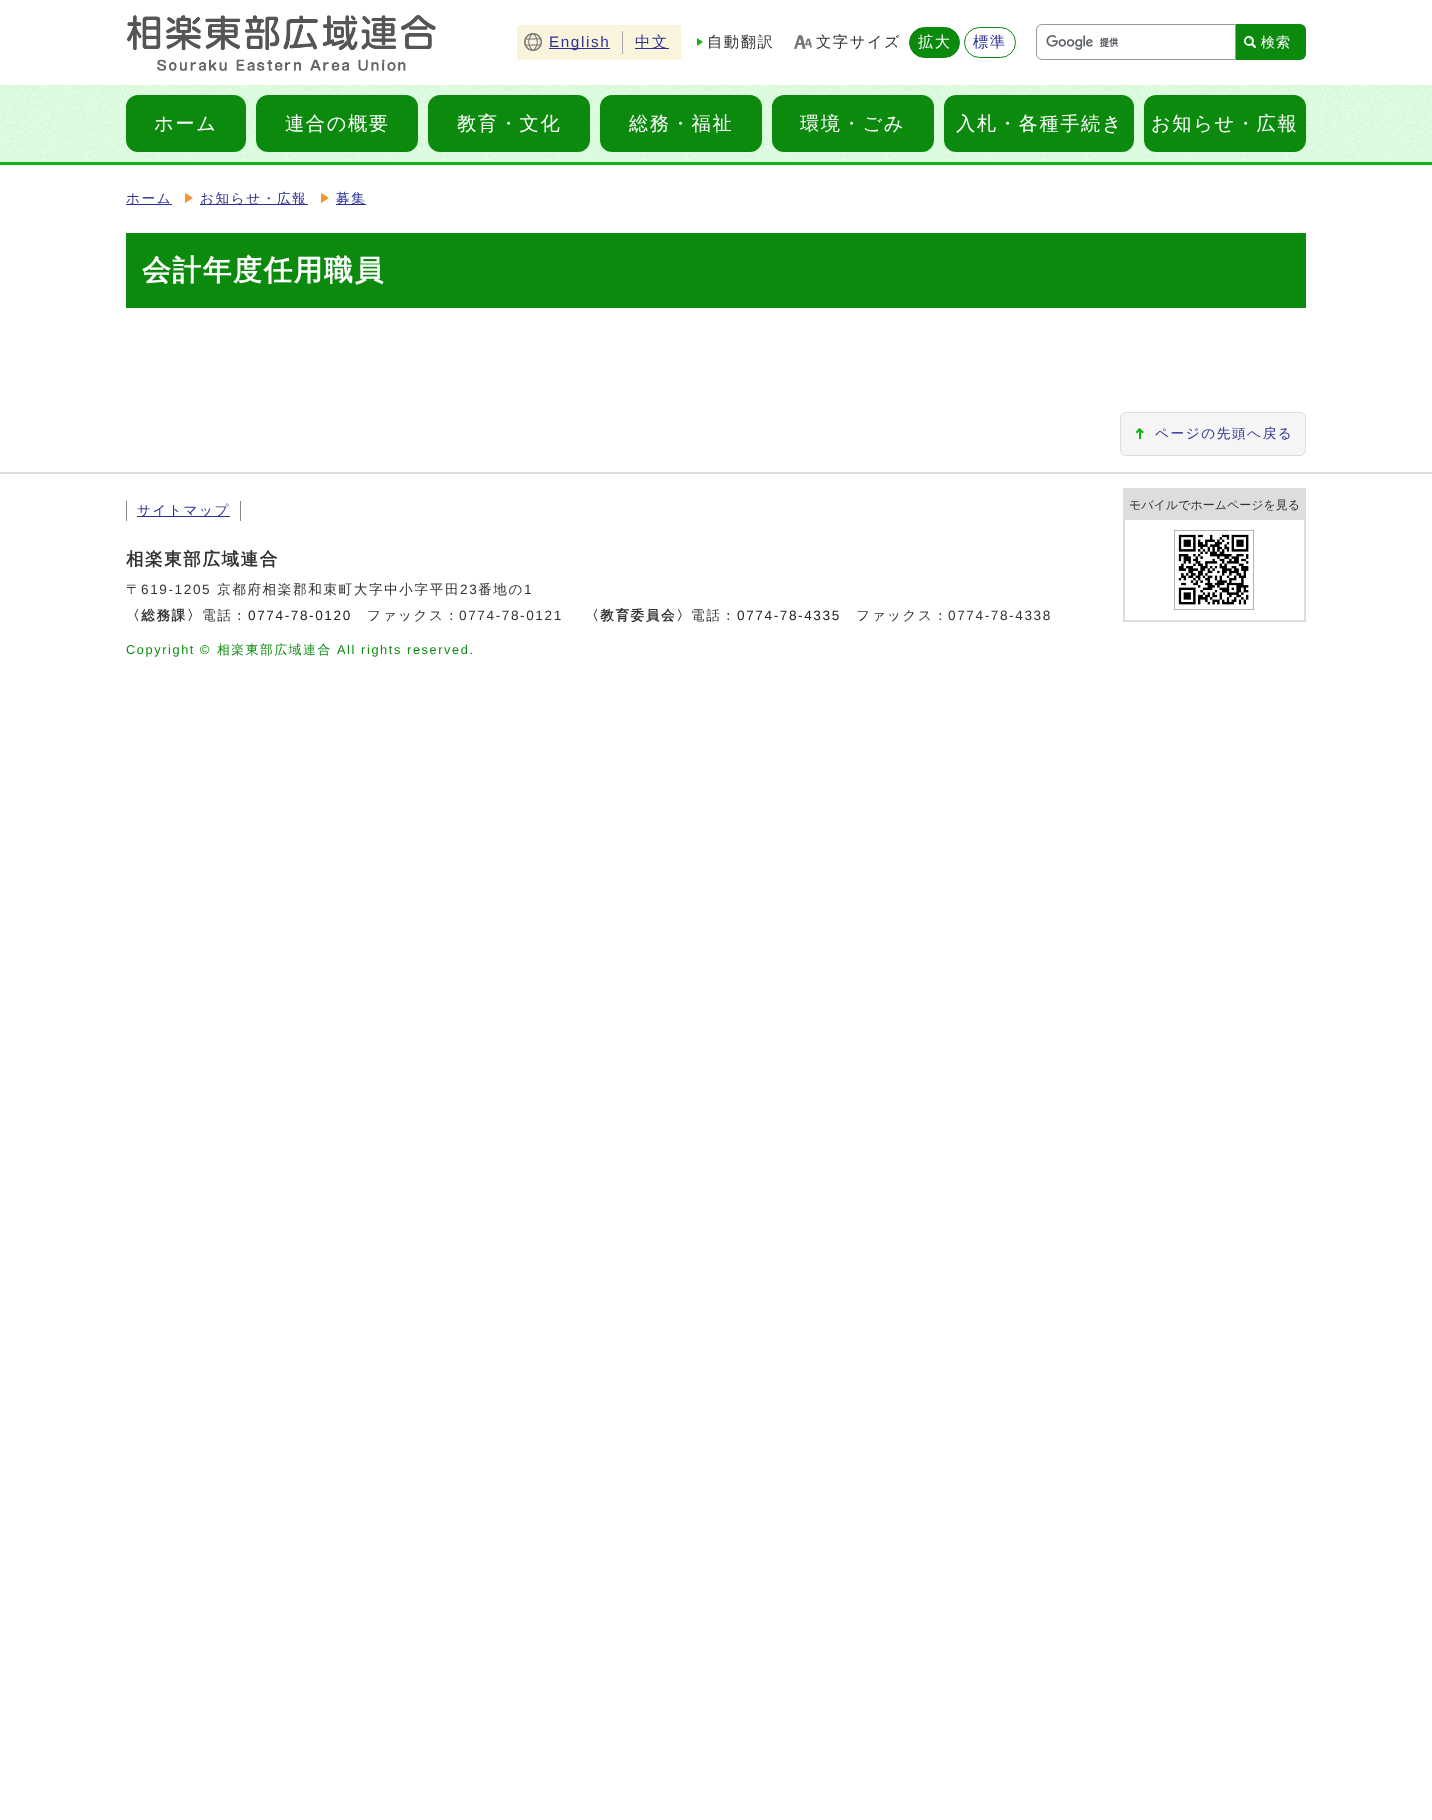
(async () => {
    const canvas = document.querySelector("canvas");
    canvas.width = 1432;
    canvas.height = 1820;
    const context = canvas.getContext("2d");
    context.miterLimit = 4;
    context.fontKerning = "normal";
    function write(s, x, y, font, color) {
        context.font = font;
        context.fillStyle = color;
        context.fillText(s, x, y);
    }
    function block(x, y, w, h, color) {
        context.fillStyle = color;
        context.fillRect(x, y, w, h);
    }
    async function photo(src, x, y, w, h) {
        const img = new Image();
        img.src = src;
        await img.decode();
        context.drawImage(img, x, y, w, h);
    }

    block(0, 0, 1432, 1820, "rgb(255, 255, 255)");
    block(0, 162, 1432, 3, "rgb(16, 180, 19)");
    await photo("media/1.png", 127, 15, 309, 56);
    block(517, 25, 164, 35, "rgb(250, 244, 220)");
    await photo("media/2.png", 524, 33, 18, 18);
    block(622, 31, 1, 23, "rgb(170, 170, 170)");
    block(549, 48, 61, 1, "rgb(43, 48, 149)");
    context.letterSpacing = "1.6px";
    write("English", 549, 47, "15.25px Liberation Sans", "rgb(43, 48, 149)");
    block(635, 48, 34, 1, "rgb(43, 48, 149)");
    write("中文", 635, 47, "500 15.25px WenQuanYi Zen Hei", "rgb(43, 48, 149)");
    context.fillStyle = "rgb(16, 180, 19)";
    context.beginPath();
    context.moveTo(697, 46);
    context.lineTo(697, 38);
    context.lineTo(703, 42);
    context.closePath();
    context.fill();
    write("自動翻訳", 707, 47, "500 15.25px WenQuanYi Zen Hei", "rgb(51, 51, 51)");
    await photo("media/3.png", 794, 35, 18, 14);
    write("文字サイズ", 816, 47, "500 15.25px WenQuanYi Zen Hei", "rgb(51, 51, 51)");
    context.fillStyle = "rgb(12, 138, 14)";
    context.beginPath();
    context.roundRect(909.5, 27.5, 50, 30, 15);
    context.fill();
    context.strokeStyle = "rgb(12, 138, 14)";
    context.stroke();
    write("拡大", 918, 47, "500 15.25px WenQuanYi Zen Hei", "rgb(255, 255, 255)");
    context.beginPath();
    context.roundRect(964.5, 27.5, 51, 30, 15);
    context.stroke();
    write("標準", 973, 47, "500 15.25px WenQuanYi Zen Hei", "rgb(43, 48, 149)");
    await photo("media/4.png", 1046, 35, 73, 15);
    context.beginPath();
    context.roundRect(1036.5, 24.5, 199, 35, [5.5, 0, 0, 5.5]);
    context.strokeStyle = "rgb(153, 153, 153)";
    context.stroke();
    context.fillStyle = "rgb(12, 138, 14)";
    context.beginPath();
    context.roundRect(1236, 24, 70, 36, [0, 6, 6, 0]);
    context.fill();
    await photo("media/5.png", 1244, 36, 12, 12);
    context.letterSpacing = "1px";
    write("検索", 1261, 47, "500 14px WenQuanYi Zen Hei", "rgb(255, 255, 255)");
    block(0, 85, 1432, 77, "rgb(224, 255, 226)");
    await photo("media/6.png", 0, 85, 1432, 77);
    context.fillStyle = "rgb(12, 138, 14)";
    context.beginPath();
    context.roundRect(127, 96, 118, 55, 11);
    context.fill();
    context.strokeStyle = "rgb(12, 138, 14)";
    context.lineWidth = 2;
    context.stroke();
    context.letterSpacing = "1.6px";
    write("ホーム", 154, 130, "500 19.25px WenQuanYi Zen Hei", "rgb(255, 255, 255)");
    context.fillStyle = "rgb(12, 138, 14)";
    context.beginPath();
    context.roundRect(257, 96, 160, 55, 11);
    context.fill();
    context.stroke();
    write("連合の概要", 285, 130, "500 19.25px WenQuanYi Zen Hei", "rgb(255, 255, 255)");
    context.fillStyle = "rgb(12, 138, 14)";
    context.beginPath();
    context.roundRect(429, 96, 160, 55, 11);
    context.fill();
    context.stroke();
    write("教育・文化", 457, 130, "500 19.25px WenQuanYi Zen Hei", "rgb(255, 255, 255)");
    context.fillStyle = "rgb(12, 138, 14)";
    context.beginPath();
    context.roundRect(601, 96, 160, 55, 11);
    context.fill();
    context.stroke();
    write("総務・福祉", 629, 130, "500 19.25px WenQuanYi Zen Hei", "rgb(255, 255, 255)");
    context.fillStyle = "rgb(12, 138, 14)";
    context.beginPath();
    context.roundRect(773, 96, 160, 55, 11);
    context.fill();
    context.stroke();
    write("環境・ごみ", 800, 130, "500 19.25px WenQuanYi Zen Hei", "rgb(255, 255, 255)");
    context.fillStyle = "rgb(12, 138, 14)";
    context.beginPath();
    context.roundRect(945, 96, 188, 55, 11);
    context.fill();
    context.stroke();
    write("入札・各種手続き", 956, 130, "500 19.25px WenQuanYi Zen Hei", "rgb(255, 255, 255)");
    context.fillStyle = "rgb(12, 138, 14)";
    context.beginPath();
    context.roundRect(1145, 96, 160, 55, 11);
    context.fill();
    context.stroke();
    write("お知らせ・広報", 1151, 130, "500 19.25px WenQuanYi Zen Hei", "rgb(255, 255, 255)");
    block(126, 204, 46, 1, "rgb(43, 48, 149)");
    write("ホーム", 126, 203, "500 13.6px WenQuanYi Zen Hei", "rgb(43, 48, 149)");
    context.fillStyle = "rgb(246, 146, 39)";
    context.beginPath();
    context.moveTo(185, 203);
    context.lineTo(185, 193);
    context.lineTo(193, 198);
    context.closePath();
    context.fill();
    block(200, 204, 108, 1, "rgb(43, 48, 149)");
    write("お知らせ・広報", 200, 203, "500 13.6px WenQuanYi Zen Hei", "rgb(43, 48, 149)");
    context.fillStyle = "rgb(246, 146, 39)";
    context.beginPath();
    context.moveTo(321, 203);
    context.lineTo(321, 193);
    context.lineTo(329, 198);
    context.closePath();
    context.fill();
    block(336, 204, 30, 1, "rgb(43, 48, 149)");
    write("募集", 336, 203, "500 13.6px WenQuanYi Zen Hei", "rgb(43, 48, 149)");
    block(126, 233, 1180, 75, "rgb(12, 138, 14)");
    write("会計年度任用職員", 142, 280, "bold 28.75px WenQuanYi Zen Hei", "rgb(255, 255, 255)");
    context.fillStyle = "rgb(245, 245, 245)";
    context.beginPath();
    context.roundRect(1120.5, 412.5, 185, 43, 5.5);
    context.fill();
    context.strokeStyle = "rgb(221, 221, 221)";
    context.lineWidth = 1;
    context.stroke();
    context.fillStyle = "rgb(16, 180, 19)";
    context.beginPath();
    context.moveTo(1137, 433.5);
    context.lineTo(1135.5, 432);
    context.lineTo(1139.5, 428);
    context.lineTo(1141, 429.5);
    context.closePath();
    context.fill();
    context.beginPath();
    context.moveTo(1142.5, 433.5);
    context.lineTo(1138, 429.5);
    context.lineTo(1139.5, 428);
    context.lineTo(1144, 432);
    context.closePath();
    context.fill();
    write("ページの先頭へ戻る", 1155, 438, "500 13.6px WenQuanYi Zen Hei", "rgb(43, 48, 149)");
    block(1139, 429, 2, 10, "rgb(16, 180, 19)");
    block(0, 472, 1432, 2, "rgb(221, 221, 221)");
    block(240, 501, 1, 20, "rgb(136, 136, 136)");
    block(126, 501, 1, 20, "rgb(136, 136, 136)");
    block(137, 516, 93, 1, "rgb(43, 48, 149)");
    write("サイトマップ", 137, 515, "500 13.6px WenQuanYi Zen Hei", "rgb(43, 48, 149)");
    context.lineWidth = 2;
    context.strokeRect(1124, 489, 181, 132);
    block(1125, 490, 179, 30, "rgb(221, 221, 221)");
    context.letterSpacing = "0px";
    write("モバイルでホームページを見る", 1129, 509, "500 12px WenQuanYi Zen Hei", "rgb(51, 51, 51)");
    await photo("media/7.png", 1174, 530, 80, 80);
    context.letterSpacing = "1.6px";
    write("相楽東部広域連合", 126, 565, "bold 17.5px WenQuanYi Zen Hei", "rgb(51, 51, 51)");
    write("〒", 126, 594, "500 13.6px WenQuanYi Zen Hei", "rgb(51, 51, 51)");
    write("619-1205", 141, 594, "13.6px Liberation Sans", "rgb(51, 51, 51)");
    write("京都府相楽郡和束町大字中小字平田", 217, 594, "500 13.6px WenQuanYi Zen Hei", "rgb(51, 51, 51)");
    write("23", 460, 594, "13.6px Liberation Sans", "rgb(51, 51, 51)");
    write("番地の", 478, 594, "500 13.6px WenQuanYi Zen Hei", "rgb(51, 51, 51)");
    write("1", 524, 594, "13.6px Liberation Sans", "rgb(51, 51, 51)");
    write("〈総務課〉", 126, 620, "bold 13.6px WenQuanYi Zen Hei", "rgb(51, 51, 51)");
    write("電話：", 202, 620, "500 13.6px WenQuanYi Zen Hei", "rgb(51, 51, 51)");
    write("0774-78-0120", 248, 620, "13.6px Liberation Sans", "rgb(34, 34, 34)");
    write("ファックス：", 367, 620, "500 13.6px WenQuanYi Zen Hei", "rgb(51, 51, 51)");
    write("0774-78-0121", 459, 620, "13.6px Liberation Sans", "rgb(51, 51, 51)");
    write("〈教育委員会〉", 585, 620, "bold 13.6px WenQuanYi Zen Hei", "rgb(51, 51, 51)");
    write("電話：", 691, 620, "500 13.6px WenQuanYi Zen Hei", "rgb(51, 51, 51)");
    write("0774-78-4335", 737, 620, "13.6px Liberation Sans", "rgb(34, 34, 34)");
    write("ファックス：", 856, 620, "500 13.6px WenQuanYi Zen Hei", "rgb(51, 51, 51)");
    write("0774-78-4338", 948, 620, "13.6px Liberation Sans", "rgb(51, 51, 51)");
    write("Copyright ©", 126, 654, "12.75px Liberation Sans", "rgb(12, 138, 14)");
    write("相楽東部広域連合", 217, 654, "500 12.75px WenQuanYi Zen Hei", "rgb(12, 138, 14)");
    write("All rights reserved.", 337, 654, "12.75px Liberation Sans", "rgb(12, 138, 14)");
})();
